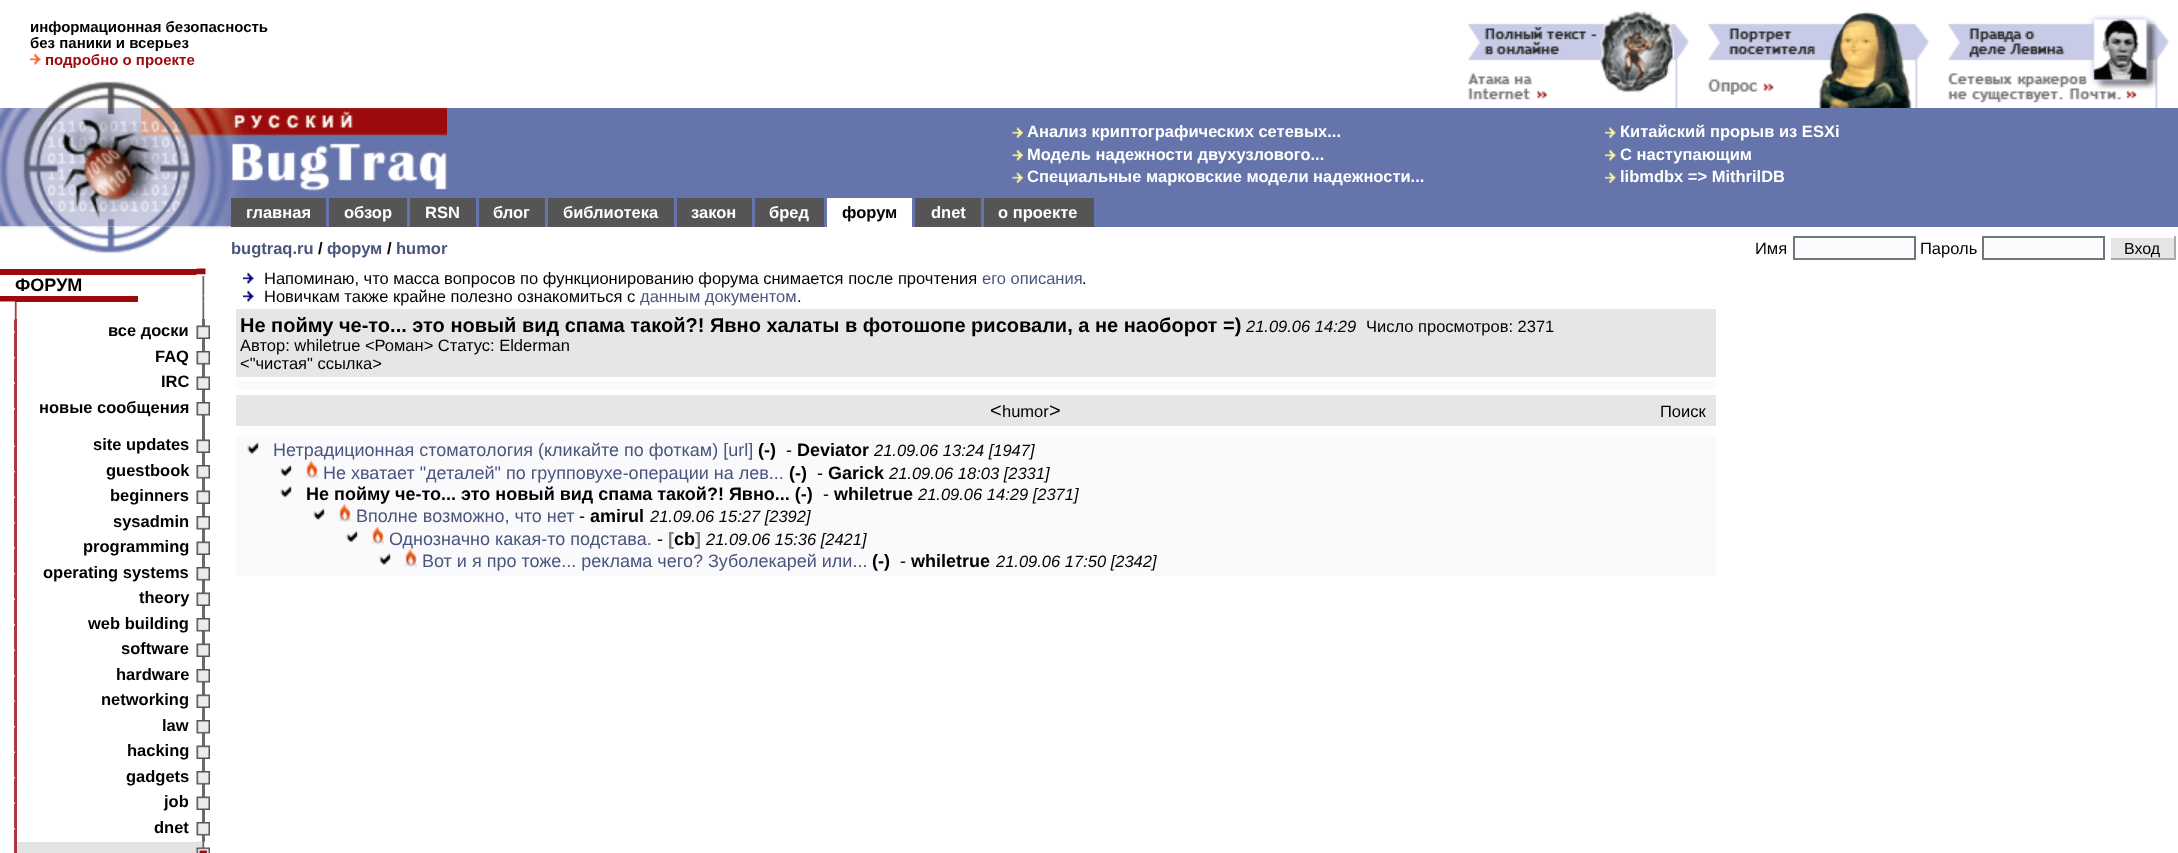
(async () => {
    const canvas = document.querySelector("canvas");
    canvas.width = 2178;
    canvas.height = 853;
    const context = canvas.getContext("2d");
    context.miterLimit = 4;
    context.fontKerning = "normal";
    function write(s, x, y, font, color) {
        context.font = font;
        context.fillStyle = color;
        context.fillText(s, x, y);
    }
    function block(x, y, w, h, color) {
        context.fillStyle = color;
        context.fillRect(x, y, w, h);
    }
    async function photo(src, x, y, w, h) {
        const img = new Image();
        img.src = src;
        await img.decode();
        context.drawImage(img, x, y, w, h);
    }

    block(0, 0, 2178, 853, "rgb(255, 255, 255)");
    write("информационная безопасность", 30, 32, "bold 15px Liberation Sans", "rgb(0, 0, 0)");
    write("без паники и всерьез", 30, 48, "bold 15px Liberation Sans", "rgb(0, 0, 0)");
    await photo("media/1.png", 30, 54, 11, 11);
    write("подробно о проекте", 45, 65, "bold 15px Liberation Sans", "rgb(156, 10, 14)");
    await photo("media/2.png", 1468, 10, 221, 98);
    await photo("media/3.png", 1708, 11, 222, 97);
    await photo("media/4.png", 1948, 15, 222, 93);
    await photo("media/5.png", 46, 81, 127, 27);
    block(447, 108, 1731, 90, "rgb(101, 116, 171)");
    await photo("media/6.png", 0, 108, 231, 119);
    await photo("media/7.png", 0, 226, 231, 28);
    await photo("media/8.png", 231, 108, 216, 90);
    await photo("media/9.png", 1012, 127, 11, 11);
    write("Анализ криптографических сетевых...", 1027, 137, "bold 16.5px Liberation Sans", "rgb(255, 255, 255)");
    await photo("media/10.png", 1012, 150, 11, 11);
    write("Модель надежности двухузлового...", 1027, 160, "bold 16.5px Liberation Sans", "rgb(255, 255, 255)");
    await photo("media/9.png", 1012, 172, 11, 11);
    write("Специальные марковские модели надежности...", 1027, 182, "bold 16.5px Liberation Sans", "rgb(255, 255, 255)");
    await photo("media/11.png", 1605, 127, 11, 11);
    write("Китайский прорыв из ESXi", 1620, 137, "bold 16.5px Liberation Sans", "rgb(255, 255, 255)");
    await photo("media/12.png", 1605, 150, 11, 11);
    write("С наступающим", 1620, 160, "bold 16.5px Liberation Sans", "rgb(255, 255, 255)");
    await photo("media/11.png", 1605, 172, 11, 11);
    write("libmdbx => MithrilDB", 1620, 182, "bold 16.5px Liberation Sans", "rgb(255, 255, 255)");
    block(326, 198, 1852, 29, "rgb(101, 116, 171)");
    block(231, 198, 95, 29, "rgb(85, 85, 85)");
    write("главная", 246, 218, "bold 16.5px Liberation Sans", "rgb(255, 255, 255)");
    block(329, 198, 78, 29, "rgb(85, 85, 85)");
    write("обзор", 344, 218, "bold 16.5px Liberation Sans", "rgb(255, 255, 255)");
    block(410, 198, 66, 29, "rgb(85, 85, 85)");
    write("RSN", 425, 218, "bold 16.5px Liberation Sans", "rgb(255, 255, 255)");
    block(479, 198, 66, 29, "rgb(85, 85, 85)");
    write("блог", 493, 218, "bold 16.5px Liberation Sans", "rgb(255, 255, 255)");
    block(548, 198, 126, 29, "rgb(85, 85, 85)");
    write("библиотека", 563, 218, "bold 16.5px Liberation Sans", "rgb(255, 255, 255)");
    block(677, 198, 75, 29, "rgb(85, 85, 85)");
    write("закон", 691, 218, "bold 16.5px Liberation Sans", "rgb(255, 255, 255)");
    block(755, 198, 69, 29, "rgb(85, 85, 85)");
    write("бред", 769, 218, "bold 16.5px Liberation Sans", "rgb(255, 255, 255)");
    block(827, 198, 85, 29, "rgb(255, 255, 255)");
    write("форум", 842, 218, "bold 16.5px Liberation Sans", "rgb(0, 0, 0)");
    block(915, 198, 66, 29, "rgb(85, 85, 85)");
    write("dnet", 931, 218, "bold 16.5px Liberation Sans", "rgb(255, 255, 255)");
    block(984, 198, 110, 29, "rgb(85, 85, 85)");
    write("о проекте", 998, 218, "bold 16.5px Liberation Sans", "rgb(255, 255, 255)");
    write("bugtraq.ru", 231, 254, "bold 16.5px Liberation Sans", "rgb(74, 85, 126)");
    write("/", 318, 254, "bold 16.5px Liberation Sans", "rgb(0, 0, 0)");
    write("форум", 327, 254, "bold 16.5px Liberation Sans", "rgb(74, 85, 126)");
    write("/", 387, 254, "bold 16.5px Liberation Sans", "rgb(0, 0, 0)");
    write("humor", 396, 254, "bold 16.5px Liberation Sans", "rgb(74, 85, 126)");
    write("Имя", 1755, 254, "16.5px Liberation Sans", "rgb(0, 0, 0)");
    context.fillStyle = "rgb(252, 252, 255)";
    context.beginPath();
    context.rect(1794, 237, 121, 22);
    context.fill();
    context.strokeStyle = "rgb(110, 118, 126)";
    context.lineWidth = 2;
    context.stroke();
    write("Пароль", 1920, 254, "16.5px Liberation Sans", "rgb(0, 0, 0)");
    context.fillStyle = "rgb(252, 252, 255)";
    context.beginPath();
    context.rect(1983, 237, 121, 22);
    context.fill();
    context.stroke();
    block(2111, 238, 63, 20, "rgb(229, 229, 229)");
    block(2174, 236, 2, 24, "rgb(170, 170, 170)");
    block(2109, 258, 66, 2, "rgb(170, 170, 170)");
    block(2109, 258, 2, 2, "rgb(255, 255, 255)");
    write("Вход", 2124, 254, "16px Liberation Sans", "rgb(0, 0, 0)");
    block(0, 269, 197, 6, "rgb(156, 10, 14)");
    await photo("media/14.png", 196, 274, 14, 22);
    await photo("media/13.png", 196, 268, 14, 7);
    write("ФОРУМ", 15, 291, "bold 18px Liberation Sans", "rgb(0, 0, 0)");
    await photo("media/15.png", 196, 274, 14, 2);
    block(0, 296, 138, 6, "rgb(156, 10, 14)");
    await photo("media/16.png", 196, 295, 9, 7);
    block(14, 319, 3, 103, "rgb(174, 55, 59)");
    await photo("media/17.png", 0, 301, 17, 19);
    await photo("media/18.png", 196, 301, 9, 19);
    await photo("media/19.png", 14, 331, 3, 2);
    write("все доски", 108, 336, "bold 16.5px Liberation Sans", "rgb(0, 0, 0)");
    block(202, 319, 3, 523, "rgb(106, 106, 106)");
    await photo("media/20.png", 196, 325, 14, 14);
    await photo("media/21.png", 14, 357, 3, 2);
    write("FAQ", 155, 362, "bold 16.5px Liberation Sans", "rgb(0, 0, 0)");
    await photo("media/22.png", 196, 351, 14, 14);
    await photo("media/19.png", 14, 382, 3, 2);
    write("IRC", 161, 387, "bold 16.5px Liberation Sans", "rgb(0, 0, 0)");
    await photo("media/20.png", 196, 376, 14, 14);
    await photo("media/21.png", 14, 408, 3, 2);
    write("новые сообщения", 39, 413, "bold 16.5px Liberation Sans", "rgb(0, 0, 0)");
    await photo("media/22.png", 196, 402, 14, 14);
    block(14, 421, 3, 432, "rgb(174, 55, 59)");
    await photo("media/19.png", 14, 445, 3, 2);
    write("site updates", 93, 450, "bold 16.5px Liberation Sans", "rgb(0, 0, 0)");
    await photo("media/20.png", 196, 439, 14, 14);
    await photo("media/21.png", 14, 471, 3, 2);
    write("guestbook", 106, 476, "bold 16.5px Liberation Sans", "rgb(0, 0, 0)");
    await photo("media/22.png", 196, 465, 14, 14);
    await photo("media/19.png", 14, 496, 3, 2);
    write("beginners", 110, 501, "bold 16.5px Liberation Sans", "rgb(0, 0, 0)");
    await photo("media/20.png", 196, 490, 14, 14);
    await photo("media/21.png", 14, 522, 3, 2);
    write("sysadmin", 113, 527, "bold 16.5px Liberation Sans", "rgb(0, 0, 0)");
    await photo("media/22.png", 196, 516, 14, 14);
    await photo("media/19.png", 14, 547, 3, 2);
    write("programming", 83, 552, "bold 16.5px Liberation Sans", "rgb(0, 0, 0)");
    await photo("media/20.png", 196, 541, 14, 14);
    await photo("media/21.png", 14, 573, 3, 2);
    write("operating systems", 43, 578, "bold 16.5px Liberation Sans", "rgb(0, 0, 0)");
    await photo("media/22.png", 196, 567, 14, 14);
    await photo("media/19.png", 14, 598, 3, 2);
    write("theory", 139, 603, "bold 16.5px Liberation Sans", "rgb(0, 0, 0)");
    await photo("media/20.png", 196, 592, 14, 14);
    await photo("media/21.png", 14, 624, 3, 2);
    write("web building", 88, 629, "bold 16.5px Liberation Sans", "rgb(0, 0, 0)");
    await photo("media/22.png", 196, 618, 14, 14);
    await photo("media/19.png", 14, 649, 3, 2);
    write("software", 121, 654, "bold 16.5px Liberation Sans", "rgb(0, 0, 0)");
    await photo("media/20.png", 196, 643, 14, 14);
    await photo("media/21.png", 14, 675, 3, 2);
    write("hardware", 116, 680, "bold 16.5px Liberation Sans", "rgb(0, 0, 0)");
    await photo("media/22.png", 196, 669, 14, 14);
    await photo("media/19.png", 14, 700, 3, 2);
    write("networking", 101, 705, "bold 16.5px Liberation Sans", "rgb(0, 0, 0)");
    await photo("media/20.png", 196, 694, 14, 14);
    await photo("media/21.png", 14, 726, 3, 2);
    write("law", 162, 731, "bold 16.5px Liberation Sans", "rgb(0, 0, 0)");
    await photo("media/22.png", 196, 720, 14, 14);
    await photo("media/19.png", 14, 751, 3, 2);
    write("hacking", 127, 756, "bold 16.5px Liberation Sans", "rgb(0, 0, 0)");
    await photo("media/20.png", 196, 745, 14, 14);
    await photo("media/21.png", 14, 777, 3, 2);
    write("gadgets", 126, 782, "bold 16.5px Liberation Sans", "rgb(0, 0, 0)");
    await photo("media/22.png", 196, 771, 14, 14);
    await photo("media/19.png", 14, 802, 3, 2);
    write("job", 164, 807, "bold 16.5px Liberation Sans", "rgb(0, 0, 0)");
    await photo("media/20.png", 196, 796, 14, 14);
    await photo("media/21.png", 14, 828, 3, 2);
    write("dnet", 154, 833, "bold 16.5px Liberation Sans", "rgb(0, 0, 0)");
    await photo("media/22.png", 196, 822, 14, 14);
    block(17, 842, 180, 11, "rgb(227, 227, 225)");
    await photo("media/23.png", 196, 841, 9, 12);
    await photo("media/24.png", 196, 847, 14, 6);
    await photo("media/25.png", 243, 272, 11, 12);
    write("Напоминаю, что масса вопросов по функционированию форума снимается после прочтения", 264, 284, "16.5px Liberation Sans", "rgb(0, 0, 0)");
    write("его описания", 982, 284, "16.5px Liberation Sans", "rgb(74, 85, 126)");
    write(".", 1082, 284, "16.5px Liberation Sans", "rgb(0, 0, 0)");
    await photo("media/25.png", 243, 290, 11, 12);
    write("Новичкам также крайне полезно ознакомиться с", 264, 302, "16.5px Liberation Sans", "rgb(0, 0, 0)");
    write("данным документом", 640, 302, "16.5px Liberation Sans", "rgb(74, 85, 126)");
    write(".", 797, 302, "16.5px Liberation Sans", "rgb(0, 0, 0)");
    block(236, 309, 1480, 68, "rgb(230, 230, 230)");
    write("Не пойму че-то... это новый вид спама такой?! Явно халаты в фотошопе рисовали, а не наоборот =)", 240, 332, "bold 20px Liberation Sans", "rgb(0, 0, 0)");
    write("21.09.06 14:29", 1246, 332, "italic 16.5px Liberation Sans", "rgb(0, 0, 0)");
    write("Число просмотров: 2371", 1366, 332, "16.5px Liberation Sans", "rgb(0, 0, 0)");
    write("Автор: whiletrue <Роман> Статус: Elderman", 240, 351, "16.5px Liberation Sans", "rgb(0, 0, 0)");
    write("<\"чистая\" ссылка>", 240, 369, "16.5px Liberation Sans", "rgb(0, 0, 0)");
    block(236, 381, 1480, 9, "rgb(250, 250, 252)");
    block(236, 395, 1480, 31, "rgb(230, 230, 230)");
    write("<", 990, 417, "20px Liberation Sans", "rgb(0, 0, 0)");
    write("humor", 1002, 417, "16.5px Liberation Sans", "rgb(0, 0, 0)");
    write(">", 1049, 417, "20px Liberation Sans", "rgb(0, 0, 0)");
    write("Поиск", 1660, 417, "16.5px Liberation Sans", "rgb(0, 0, 0)");
    block(236, 435, 1480, 141, "rgb(250, 250, 252)");
    await photo("media/26.png", 247, 442, 12, 13);
    write("Нетрадиционная стоматология (кликайте по фоткам) [url]", 273, 456, "18px Liberation Sans", "rgb(74, 85, 126)");
    write("(-)", 758, 456, "bold 18px Liberation Sans", "rgb(0, 0, 0)");
    write("-", 786, 456, "18px Liberation Sans", "rgb(0, 0, 0)");
    write("Deviator", 797, 456, "bold 18px Liberation Sans", "rgb(0, 0, 0)");
    write("21.09.06 13:24 [1947]", 874, 456, "italic 16.5px Liberation Sans", "rgb(0, 0, 0)");
    await photo("media/27.png", 280, 464, 12, 13);
    await photo("media/28.png", 306, 460, 12, 19);
    write("Не хватает \"деталей\" по групповухе-операции на лев...", 323, 479, "18px Liberation Sans", "rgb(74, 85, 126)");
    write("(-)", 789, 479, "bold 18px Liberation Sans", "rgb(0, 0, 0)");
    write("-", 817, 479, "18px Liberation Sans", "rgb(0, 0, 0)");
    write("Garick", 828, 479, "bold 18px Liberation Sans", "rgb(0, 0, 0)");
    write("21.09.06 18:03 [2331]", 889, 479, "italic 16.5px Liberation Sans", "rgb(0, 0, 0)");
    await photo("media/27.png", 280, 485, 12, 13);
    write("Не пойму че-то... это новый вид спама такой?! Явно... (-)", 306, 500, "bold 18px Liberation Sans", "rgb(0, 0, 0)");
    write("-", 823, 500, "18px Liberation Sans", "rgb(0, 0, 0)");
    write("whiletrue", 834, 500, "bold 18px Liberation Sans", "rgb(0, 0, 0)");
    write("21.09.06 14:29 [2371]", 918, 500, "italic 16.5px Liberation Sans", "rgb(0, 0, 0)");
    await photo("media/29.png", 313, 508, 12, 13);
    await photo("media/30.png", 339, 504, 12, 18);
    write("Вполне возможно, что нет", 356, 522, "18px Liberation Sans", "rgb(74, 85, 126)");
    write("-", 579, 522, "18px Liberation Sans", "rgb(0, 0, 0)");
    write("amirul", 590, 522, "bold 18px Liberation Sans", "rgb(0, 0, 0)");
    write("21.09.06 15:27 [2392]", 650, 522, "italic 16.5px Liberation Sans", "rgb(0, 0, 0)");
    await photo("media/27.png", 346, 530, 12, 13);
    await photo("media/28.png", 372, 526, 12, 19);
    write("Однозначно какая-то подстава.", 389, 545, "18px Liberation Sans", "rgb(74, 85, 126)");
    write("-", 657, 545, "18px Liberation Sans", "rgb(0, 0, 0)");
    write("[", 668, 545, "bold 18px Liberation Sans", "rgb(128, 128, 128)");
    write("cb", 674, 545, "bold 18px Liberation Sans", "rgb(0, 0, 0)");
    write("]", 695, 545, "bold 18px Liberation Sans", "rgb(128, 128, 128)");
    write("21.09.06 15:36 [2421]", 706, 545, "italic 16.5px Liberation Sans", "rgb(0, 0, 0)");
    await photo("media/29.png", 379, 553, 12, 13);
    await photo("media/30.png", 405, 549, 12, 18);
    write("Вот и я про тоже... реклама чего? Зуболекарей или...", 422, 567, "18px Liberation Sans", "rgb(74, 85, 126)");
    write("(-)", 872, 567, "bold 18px Liberation Sans", "rgb(0, 0, 0)");
    write("-", 900, 567, "18px Liberation Sans", "rgb(0, 0, 0)");
    write("whiletrue", 911, 567, "bold 18px Liberation Sans", "rgb(0, 0, 0)");
    write("21.09.06 17:50 [2342]", 996, 567, "italic 16.5px Liberation Sans", "rgb(0, 0, 0)");
})();
